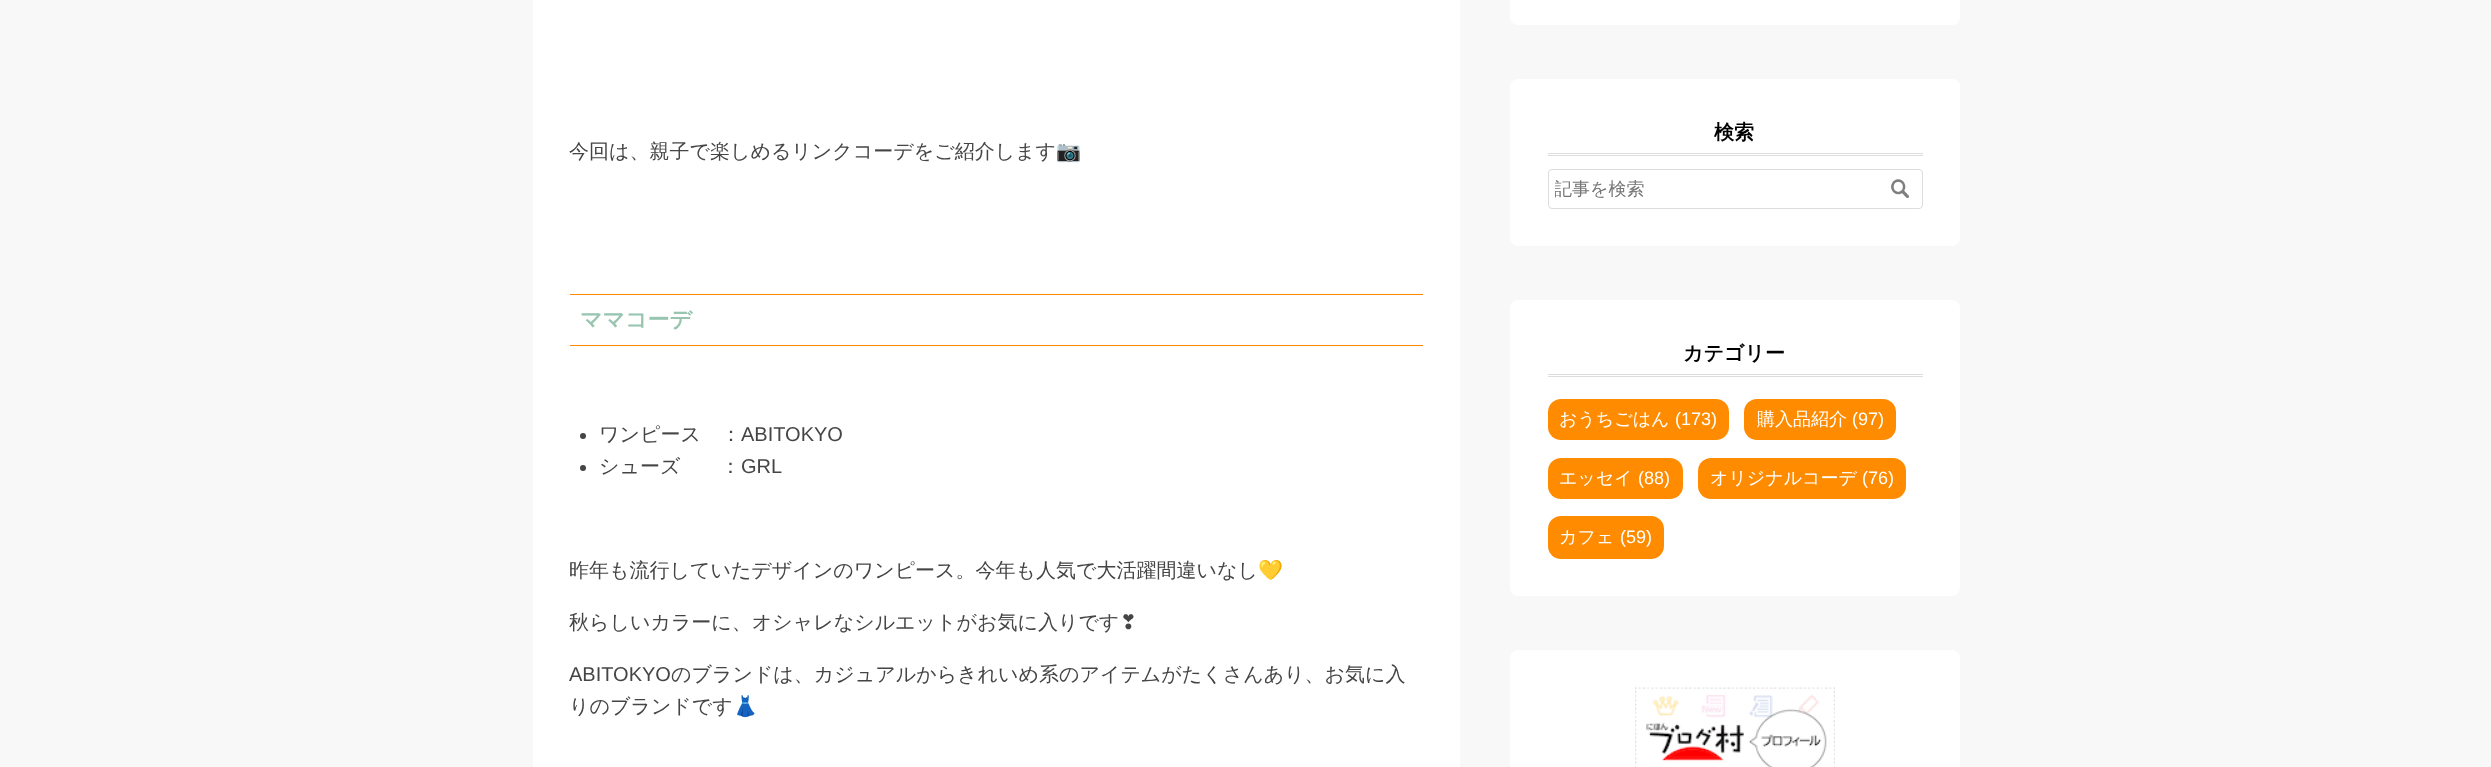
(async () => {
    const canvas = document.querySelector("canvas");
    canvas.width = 2491;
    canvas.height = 767;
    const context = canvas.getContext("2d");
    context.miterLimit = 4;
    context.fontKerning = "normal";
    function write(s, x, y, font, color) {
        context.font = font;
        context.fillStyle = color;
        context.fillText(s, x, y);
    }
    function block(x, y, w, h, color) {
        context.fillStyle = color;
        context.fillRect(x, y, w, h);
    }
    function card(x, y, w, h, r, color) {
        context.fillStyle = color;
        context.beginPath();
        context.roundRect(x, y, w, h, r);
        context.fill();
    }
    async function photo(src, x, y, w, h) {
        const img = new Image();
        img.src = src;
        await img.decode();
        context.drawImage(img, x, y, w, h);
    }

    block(0, 0, 2491, 767, "rgb(248, 248, 248)");
    block(533, 0, 927, 767, "rgb(255, 255, 255)");
    write("今回は、親子で楽しめるリンクコーデをご紹介します", 569, 158, "500 20px WenQuanYi Zen Hei", "rgb(69, 69, 69)");
    write("📷", 1056, 158, "20px Noto Color Emoji", "rgb(69, 69, 69)");
    block(570, 294, 853, 1, "rgb(255, 140, 0)");
    block(570, 345, 853, 1, "rgb(255, 140, 0)");
    write("ママコーデ", 580, 327, "bold 22px WenQuanYi Zen Hei", "rgb(151, 197, 176)");
    context.fillStyle = "rgb(69, 69, 69)";
    context.beginPath();
    context.arc(583, 436, 3, 0, Math.PI * 2);
    context.fill();
    write("ワンピース　：", 599, 441, "500 20px WenQuanYi Zen Hei", "rgb(69, 69, 69)");
    write("ABITOKYO", 741, 441, "20px Liberation Sans", "rgb(69, 69, 69)");
    context.beginPath();
    context.arc(583, 468, 3, 0, Math.PI * 2);
    context.fill();
    write("シューズ　　：", 599, 473, "500 20px WenQuanYi Zen Hei", "rgb(69, 69, 69)");
    write("GRL", 741, 473, "20px Liberation Sans", "rgb(69, 69, 69)");
    write("昨年も流行していたデザインのワンピース。今年も人気で大活躍間違いなし", 569, 577, "500 20px WenQuanYi Zen Hei", "rgb(69, 69, 69)");
    write("💛", 1258, 577, "20px Noto Color Emoji", "rgb(69, 69, 69)");
    write("秋らしいカラーに、オシャレなシルエットがお気に入りです", 569, 629, "500 20px WenQuanYi Zen Hei", "rgb(69, 69, 69)");
    write("❣", 1120, 629, "20px DejaVu Sans", "rgb(69, 69, 69)");
    write("ABITOKYO", 569, 681, "20px Liberation Sans", "rgb(69, 69, 69)");
    write("のブランドは、カジュアルからきれいめ系のアイテムがたくさんあり、お気に入", 671, 681, "500 20px WenQuanYi Zen Hei", "rgb(69, 69, 69)");
    write("りのブランドです", 569, 713, "500 20px WenQuanYi Zen Hei", "rgb(69, 69, 69)");
    write("👗", 733, 713, "20px Noto Color Emoji", "rgb(69, 69, 69)");
    card(1510, -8, 450, 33, 8, "rgb(255, 255, 255)");
    card(1510, 79, 450, 167, 8, "rgb(255, 255, 255)");
    block(1548, 153, 375, 1, "rgb(221, 221, 221)");
    block(1548, 155, 375, 1, "rgb(221, 221, 221)");
    write("検索", 1714, 139, "bold 20px WenQuanYi Zen Hei", "rgb(0, 0, 0)");
    context.beginPath();
    context.roundRect(1548.5, 169.5, 374, 39, 3.5);
    context.strokeStyle = "rgb(221, 221, 221)";
    context.stroke();
    context.save();
    context.beginPath();
    context.rect(1555, 178, 324, 23);
    context.clip();
    write("記事を検索", 1554, 195, "500 18px WenQuanYi Zen Hei", "rgb(117, 117, 117)");
    context.restore();
    await photo("media/1.png", 1891, 179, 19, 19);
    card(1510, 300, 450, 296, 8, "rgb(255, 255, 255)");
    block(1548, 374, 375, 1, "rgb(221, 221, 221)");
    block(1548, 376, 375, 1, "rgb(221, 221, 221)");
    write("カテゴリー", 1683, 360, "bold 20px WenQuanYi Zen Hei", "rgb(0, 0, 0)");
    card(1548, 399, 181, 41, 13, "rgb(255, 140, 0)");
    write("おうちごはん", 1559, 425, "500 18px WenQuanYi Zen Hei", "rgb(255, 255, 255)");
    write("(173)", 1675, 425, "18px Liberation Sans", "rgb(255, 255, 255)");
    card(1744, 399, 152, 41, 13, "rgb(255, 140, 0)");
    write("購入品紹介", 1757, 425, "500 18px WenQuanYi Zen Hei", "rgb(255, 255, 255)");
    write("(97)", 1852, 425, "18px Liberation Sans", "rgb(255, 255, 255)");
    card(1548, 458, 135, 41, 13, "rgb(255, 140, 0)");
    write("エッセイ", 1559, 484, "500 18px WenQuanYi Zen Hei", "rgb(255, 255, 255)");
    write("(88)", 1638, 484, "18px Liberation Sans", "rgb(255, 255, 255)");
    card(1698, 458, 208, 41, 13, "rgb(255, 140, 0)");
    write("オリジナルコーデ", 1710, 484, "500 18px WenQuanYi Zen Hei", "rgb(255, 255, 255)");
    write("(76)", 1862, 484, "18px Liberation Sans", "rgb(255, 255, 255)");
    card(1548, 516, 116, 43, 13, "rgb(255, 140, 0)");
    write("カフェ", 1559, 543, "500 18px WenQuanYi Zen Hei", "rgb(255, 255, 255)");
    write("(59)", 1620, 543, "18px Liberation Sans", "rgb(255, 255, 255)");
    card(1510, 650, 450, 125, 8, "rgb(255, 255, 255)");
    await photo("media/2.png", 1635, 687, 200, 80);
})();
